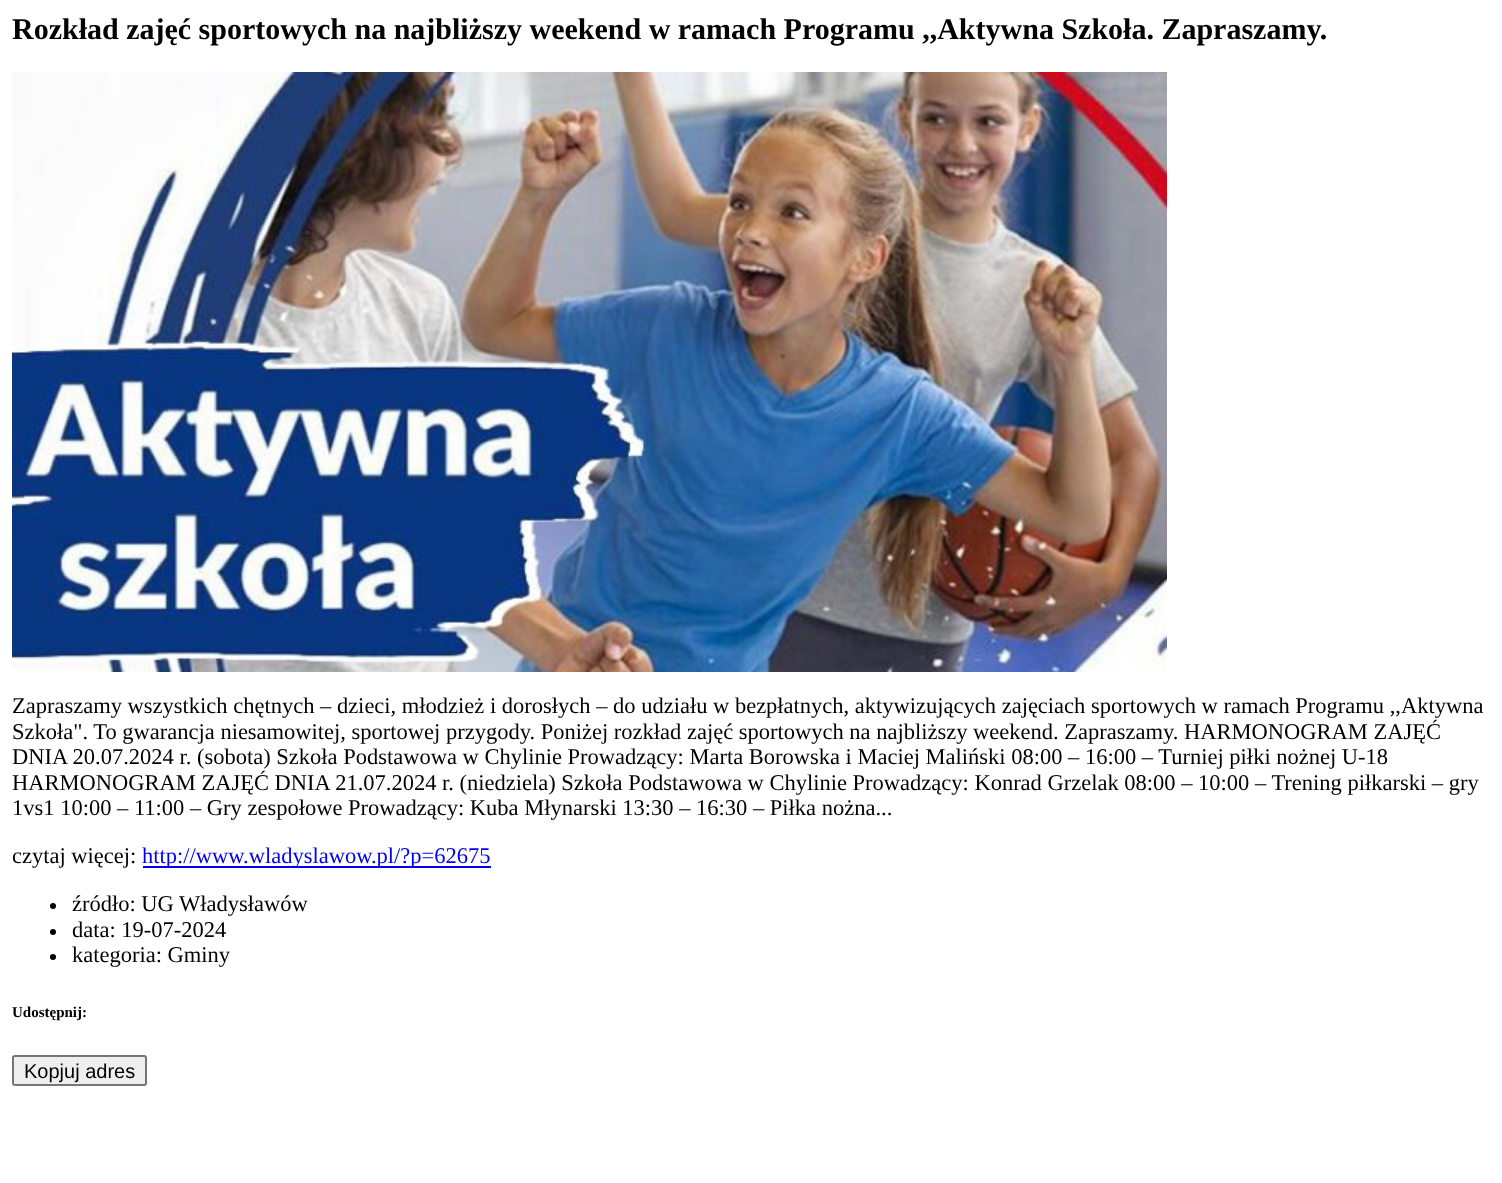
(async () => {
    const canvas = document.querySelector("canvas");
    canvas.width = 1502;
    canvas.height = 1183;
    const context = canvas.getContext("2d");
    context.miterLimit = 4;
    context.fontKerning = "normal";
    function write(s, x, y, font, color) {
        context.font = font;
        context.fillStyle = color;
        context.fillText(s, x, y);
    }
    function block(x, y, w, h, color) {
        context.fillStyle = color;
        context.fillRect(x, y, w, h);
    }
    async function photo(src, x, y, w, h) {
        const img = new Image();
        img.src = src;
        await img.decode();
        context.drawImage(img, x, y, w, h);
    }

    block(0, 0, 1502, 1183, "rgb(255, 255, 255)");
    write("Rozkład zajęć sportowych na najbliższy weekend w ramach Programu ,,Aktywna Szkoła. Zapraszamy.", 12, 39, "bold 30px Liberation Serif", "rgb(0, 0, 0)");
    await photo("media/1.png", 12, 72, 1155, 600);
    write("Zapraszamy wszystkich chętnych – dzieci, młodzież i dorosłych – do udziału w bezpłatnych, aktywizujących zajęciach sportowych w ramach Programu ,,Aktywna", 12, 713, "22.5px Liberation Serif", "rgb(0, 0, 0)");
    write("Szkoła\". To gwarancja niesamowitej, sportowej przygody. Poniżej rozkład zajęć sportowych na najbliższy weekend. Zapraszamy. HARMONOGRAM ZAJĘĆ", 12, 739, "22.5px Liberation Serif", "rgb(0, 0, 0)");
    write("DNIA 20.07.2024 r. (sobota) Szkoła Podstawowa w Chylinie Prowadzący: Marta Borowska i Maciej Maliński 08:00 – 16:00 – Turniej piłki nożnej U-18", 12, 764, "22.5px Liberation Serif", "rgb(0, 0, 0)");
    write("HARMONOGRAM ZAJĘĆ DNIA 21.07.2024 r. (niedziela) Szkoła Podstawowa w Chylinie Prowadzący: Konrad Grzelak 08:00 – 10:00 – Trening piłkarski – gry", 12, 790, "22.5px Liberation Serif", "rgb(0, 0, 0)");
    write("1vs1 10:00 – 11:00 – Gry zespołowe Prowadzący: Kuba Młynarski 13:30 – 16:30 – Piłka nożna...", 12, 815, "22.5px Liberation Serif", "rgb(0, 0, 0)");
    write("czytaj więcej:", 12, 863, "22.5px Liberation Serif", "rgb(0, 0, 0)");
    block(143, 866, 348, 2, "rgb(0, 0, 238)");
    write("http://www.wladyslawow.pl/?p=62675", 142, 863, "22.5px Liberation Serif", "rgb(0, 0, 238)");
    context.fillStyle = "rgb(0, 0, 0)";
    context.beginPath();
    context.arc(53, 906, 3, 0, Math.PI * 2);
    context.fill();
    write("źródło: UG Władysławów", 72, 911, "22.5px Liberation Serif", "rgb(0, 0, 0)");
    context.beginPath();
    context.arc(53, 932, 3, 0, Math.PI * 2);
    context.fill();
    write("data: 19-07-2024", 72, 937, "22.5px Liberation Serif", "rgb(0, 0, 0)");
    context.beginPath();
    context.arc(53, 957, 3, 0, Math.PI * 2);
    context.fill();
    write("kategoria: Gminy", 72, 962, "22.5px Liberation Serif", "rgb(0, 0, 0)");
    write("Udostępnij:", 12, 1017, "bold 15px Liberation Serif", "rgb(0, 0, 0)");
    context.fillStyle = "rgb(239, 239, 239)";
    context.beginPath();
    context.roundRect(13, 1056, 133, 29, 2);
    context.fill();
    context.strokeStyle = "rgb(118, 118, 118)";
    context.lineWidth = 2;
    context.stroke();
    write("Kopjuj adres", 24, 1078, "20px Liberation Sans", "rgb(0, 0, 0)");
})();
